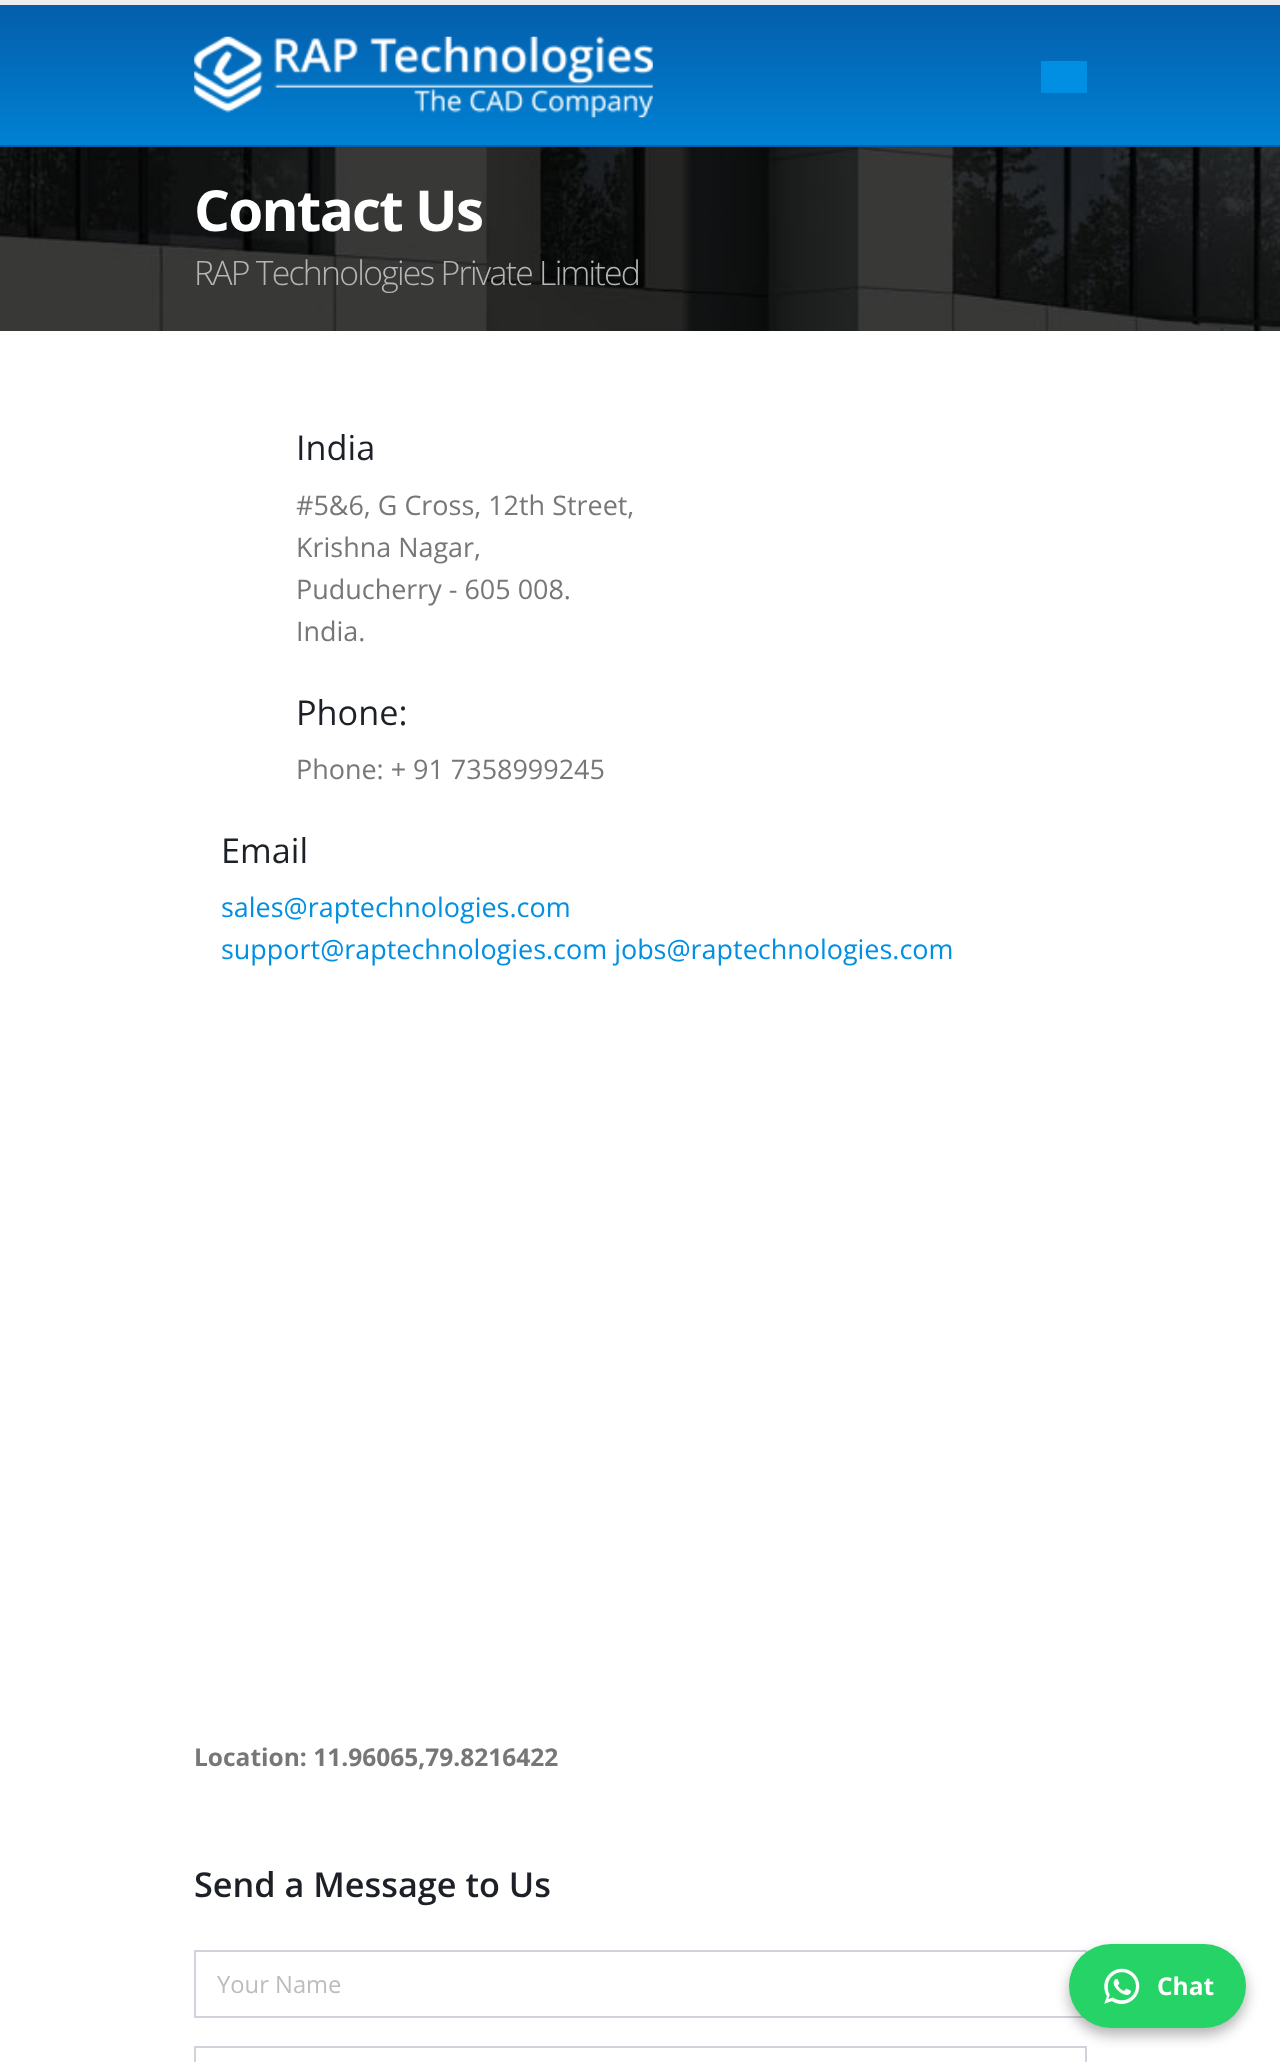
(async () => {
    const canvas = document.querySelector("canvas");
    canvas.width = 1280;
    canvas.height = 2062;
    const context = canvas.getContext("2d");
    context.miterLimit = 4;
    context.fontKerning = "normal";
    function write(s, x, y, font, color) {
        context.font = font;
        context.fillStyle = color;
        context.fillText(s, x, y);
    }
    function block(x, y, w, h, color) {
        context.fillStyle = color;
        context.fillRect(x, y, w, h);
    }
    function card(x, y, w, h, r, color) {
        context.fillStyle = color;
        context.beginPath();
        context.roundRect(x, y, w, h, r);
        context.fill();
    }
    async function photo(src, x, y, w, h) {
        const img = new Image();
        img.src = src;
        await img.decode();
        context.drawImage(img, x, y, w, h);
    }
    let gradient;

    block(0, 0, 1280, 2062, "rgb(255, 255, 255)");
    gradient = context.createLinearGradient(641, 5.2, 641, 145);
    gradient.addColorStop(0, "rgb(4, 94, 171)");
    gradient.addColorStop(1, "rgb(0, 129, 211)");
    context.fillStyle = gradient;
    context.fillRect(0, 5, 1280, 140);
    gradient = context.createLinearGradient(641, 145, 641, 285);
    gradient.addColorStop(0, "rgb(4, 94, 171)");
    gradient.addColorStop(1, "rgb(0, 129, 211)");
    context.fillStyle = gradient;
    context.fillRect(0, 145, 1280, 2);
    block(0, 0, 1280, 5, "rgb(237, 237, 237)");
    await photo("media/1.png", 194, 36, 459, 82);
    block(1041, 61, 46, 32, "rgb(0, 143, 226)");
    await photo("media/2.png", 0, 147, 1280, 184);
    context.letterSpacing = "-1.75px";
    write("Contact Us", 194, 231, "bold 56.5px Open Sans", "rgb(255, 255, 255)");
    write("RAP Technologies Private Limited", 194, 285, "300 33.75px Open Sans", "rgb(181, 181, 180)");
    context.letterSpacing = "0px";
    write("India", 296, 460, "34.25px Open Sans", "rgb(29, 33, 39)");
    write("#5&6, G Cross, 12th Street,", 296, 515, "26.95px Open Sans", "rgb(119, 119, 119)");
    write("Krishna Nagar,", 296, 557, "26.95px Open Sans", "rgb(119, 119, 119)");
    write("Puducherry - 605 008.", 296, 599, "26.95px Open Sans", "rgb(119, 119, 119)");
    write("India.", 296, 641, "26.95px Open Sans", "rgb(119, 119, 119)");
    write("Phone:", 296, 725, "34.25px Open Sans", "rgb(29, 33, 39)");
    write("Phone: + 91 7358999245", 296, 779, "26.95px Open Sans", "rgb(119, 119, 119)");
    write("Email", 221, 863, "34.25px Open Sans", "rgb(29, 33, 39)");
    write("sales@raptechnologies.com", 221, 917, "26.95px Open Sans", "rgb(0, 143, 226)");
    write("support@raptechnologies.com jobs@raptechnologies.com", 221, 959, "26.95px Open Sans", "rgb(0, 143, 226)");
    write("Location: 11.96065,79.8216422", 194, 1766, "bold 24.5px Open Sans", "rgb(119, 119, 119)");
    write("Send a Message to Us", 194, 1897, "600 34.25px Open Sans", "rgb(29, 33, 39)");
    context.strokeStyle = "rgb(206, 212, 218)";
    context.lineWidth = 2;
    context.strokeRect(195, 1951, 891, 66);
    write("Your Name", 217, 1993, "23.75px Open Sans", "rgb(189, 189, 189)");
    context.strokeRect(195, 2047, 891, 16);
    context.fillStyle = "rgba(0, 0, 0, 0.3)";
    context.filter = "blur(7px)";
    context.beginPath();
    context.roundRect(1069, 1951, 177, 84, 42);
    context.fill();
    context.filter = "none";
    card(1069, 1944, 177, 84, 42, "rgb(37, 211, 102)");
    await photo("media/3.png", 1104, 1968, 36, 36);
    write("Chat", 1157, 1995, "bold 24.5px Open Sans", "rgb(255, 255, 255)");
})();
